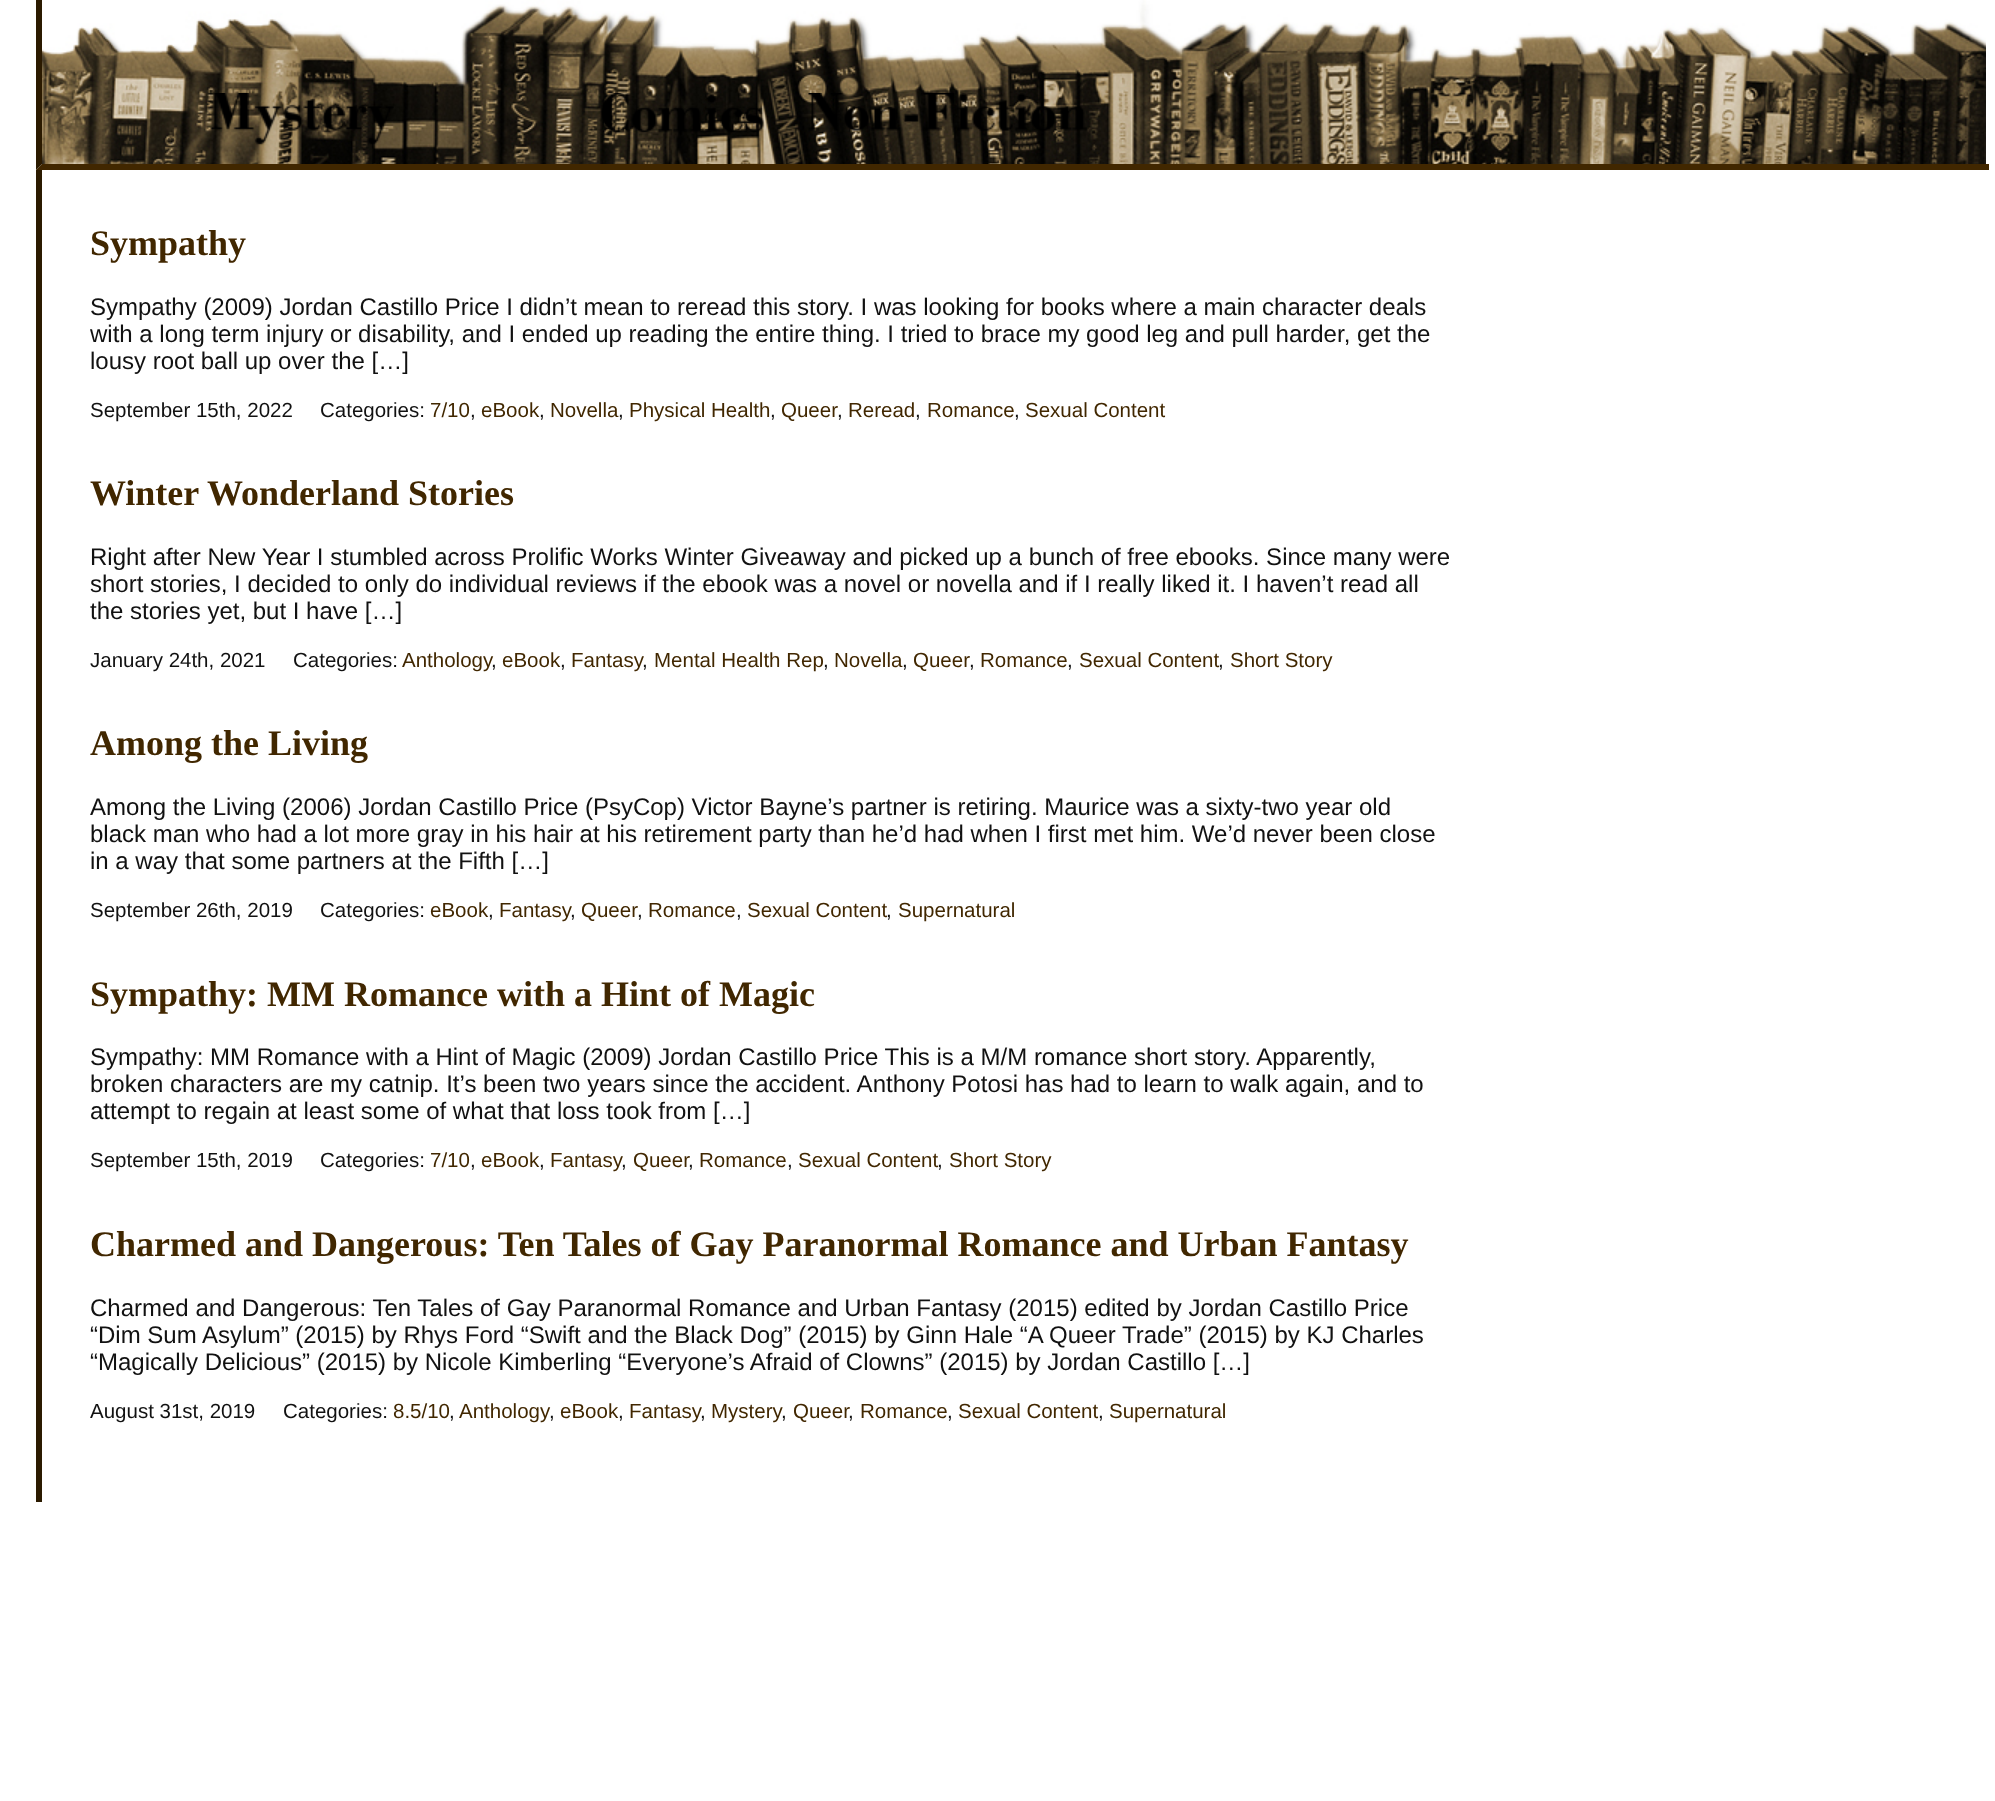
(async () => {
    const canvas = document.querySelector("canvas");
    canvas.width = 1995;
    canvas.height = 1801;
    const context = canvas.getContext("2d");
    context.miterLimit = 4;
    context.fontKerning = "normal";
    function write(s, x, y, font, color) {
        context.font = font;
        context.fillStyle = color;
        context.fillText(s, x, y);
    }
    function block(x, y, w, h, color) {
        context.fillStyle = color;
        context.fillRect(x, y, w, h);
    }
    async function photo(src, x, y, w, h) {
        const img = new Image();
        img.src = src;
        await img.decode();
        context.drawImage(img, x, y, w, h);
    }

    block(0, 0, 1995, 1801, "rgb(255, 255, 255)");
    await photo("media/1.png", 42, 0, 1944, 164);
    context.fillStyle = "rgb(65, 39, 0)";
    context.beginPath();
    context.moveTo(1989, 170);
    context.lineTo(36, 170);
    context.lineTo(42, 164);
    context.lineTo(1989, 164);
    context.closePath();
    context.fill();
    context.fillStyle = "rgb(43, 26, 0)";
    context.beginPath();
    context.moveTo(36, 170);
    context.lineTo(36, 0);
    context.lineTo(42, 0);
    context.lineTo(42, 164);
    context.closePath();
    context.fill();
    await photo("media/2.png", 211, 93, 183, 52);
    await photo("media/3.png", 601, 93, 163, 40);
    await photo("media/4.png", 808, 93, 279, 38);
    block(36, 170, 6, 1332, "rgb(43, 26, 0)");
    write("Sympathy", 90, 255, "bold 36px Liberation Serif", "rgb(65, 39, 0)");
    write("Sympathy (2009) Jordan Castillo Price I didn’t mean to reread this story. I was looking for books where a main character deals", 90, 315, "24px Liberation Sans", "rgb(17, 17, 17)");
    write("with a long term injury or disability, and I ended up reading the entire thing. I tried to brace my good leg and pull harder, get the", 90, 342, "24px Liberation Sans", "rgb(17, 17, 17)");
    write("lousy root ball up over the […]", 90, 369, "24px Liberation Sans", "rgb(17, 17, 17)");
    write("September 15th, 2022", 90, 417, "20.5px Liberation Sans", "rgb(17, 17, 17)");
    write("Categories:", 320, 417, "20.5px Liberation Sans", "rgb(17, 17, 17)");
    write("7/10", 430, 417, "20.5px Liberation Sans", "rgb(65, 39, 0)");
    write(",", 470, 417, "20.5px Liberation Sans", "rgb(17, 17, 17)");
    write("eBook", 481, 417, "20.5px Liberation Sans", "rgb(65, 39, 0)");
    write(",", 539, 417, "20.5px Liberation Sans", "rgb(17, 17, 17)");
    write("Novella", 550, 417, "20.5px Liberation Sans", "rgb(65, 39, 0)");
    write(",", 618, 417, "20.5px Liberation Sans", "rgb(17, 17, 17)");
    write("Physical Health", 629, 417, "20.5px Liberation Sans", "rgb(65, 39, 0)");
    write(",", 770, 417, "20.5px Liberation Sans", "rgb(17, 17, 17)");
    write("Queer", 781, 417, "20.5px Liberation Sans", "rgb(65, 39, 0)");
    write(",", 837, 417, "20.5px Liberation Sans", "rgb(17, 17, 17)");
    write("Reread", 848, 417, "20.5px Liberation Sans", "rgb(65, 39, 0)");
    write(",", 915, 417, "20.5px Liberation Sans", "rgb(17, 17, 17)");
    write("Romance", 927, 417, "20.5px Liberation Sans", "rgb(65, 39, 0)");
    write(",", 1014, 417, "20.5px Liberation Sans", "rgb(17, 17, 17)");
    write("Sexual Content", 1025, 417, "20.5px Liberation Sans", "rgb(65, 39, 0)");
    write("Winter Wonderland Stories", 90, 505, "bold 36px Liberation Serif", "rgb(65, 39, 0)");
    write("Right after New Year I stumbled across Prolific Works Winter Giveaway and picked up a bunch of free ebooks. Since many were", 90, 565, "24px Liberation Sans", "rgb(17, 17, 17)");
    write("short stories, I decided to only do individual reviews if the ebook was a novel or novella and if I really liked it. I haven’t read all", 90, 592, "24px Liberation Sans", "rgb(17, 17, 17)");
    write("the stories yet, but I have […]", 90, 619, "24px Liberation Sans", "rgb(17, 17, 17)");
    write("January 24th, 2021", 90, 667, "20.5px Liberation Sans", "rgb(17, 17, 17)");
    write("Categories:", 293, 667, "20.5px Liberation Sans", "rgb(17, 17, 17)");
    write("Anthology", 402, 667, "20.5px Liberation Sans", "rgb(65, 39, 0)");
    write(",", 491, 667, "20.5px Liberation Sans", "rgb(17, 17, 17)");
    write("eBook", 502, 667, "20.5px Liberation Sans", "rgb(65, 39, 0)");
    write(",", 560, 667, "20.5px Liberation Sans", "rgb(17, 17, 17)");
    write("Fantasy", 571, 667, "20.5px Liberation Sans", "rgb(65, 39, 0)");
    write(",", 642, 667, "20.5px Liberation Sans", "rgb(17, 17, 17)");
    write("Mental Health Rep", 654, 667, "20.5px Liberation Sans", "rgb(65, 39, 0)");
    write(",", 823, 667, "20.5px Liberation Sans", "rgb(17, 17, 17)");
    write("Novella", 834, 667, "20.5px Liberation Sans", "rgb(65, 39, 0)");
    write(",", 902, 667, "20.5px Liberation Sans", "rgb(17, 17, 17)");
    write("Queer", 913, 667, "20.5px Liberation Sans", "rgb(65, 39, 0)");
    write(",", 969, 667, "20.5px Liberation Sans", "rgb(17, 17, 17)");
    write("Romance", 980, 667, "20.5px Liberation Sans", "rgb(65, 39, 0)");
    write(",", 1067, 667, "20.5px Liberation Sans", "rgb(17, 17, 17)");
    write("Sexual Content", 1079, 667, "20.5px Liberation Sans", "rgb(65, 39, 0)");
    write(",", 1218, 667, "20.5px Liberation Sans", "rgb(17, 17, 17)");
    write("Short Story", 1230, 667, "20.5px Liberation Sans", "rgb(65, 39, 0)");
    write("Among the Living", 90, 755, "bold 36px Liberation Serif", "rgb(65, 39, 0)");
    write("Among the Living (2006) Jordan Castillo Price (PsyCop) Victor Bayne’s partner is retiring. Maurice was a sixty-two year old", 90, 815, "24px Liberation Sans", "rgb(17, 17, 17)");
    write("black man who had a lot more gray in his hair at his retirement party than he’d had when I first met him. We’d never been close", 90, 842, "24px Liberation Sans", "rgb(17, 17, 17)");
    write("in a way that some partners at the Fifth […]", 90, 869, "24px Liberation Sans", "rgb(17, 17, 17)");
    write("September 26th, 2019", 90, 917, "20.5px Liberation Sans", "rgb(17, 17, 17)");
    write("Categories:", 320, 917, "20.5px Liberation Sans", "rgb(17, 17, 17)");
    write("eBook", 430, 917, "20.5px Liberation Sans", "rgb(65, 39, 0)");
    write(",", 488, 917, "20.5px Liberation Sans", "rgb(17, 17, 17)");
    write("Fantasy", 499, 917, "20.5px Liberation Sans", "rgb(65, 39, 0)");
    write(",", 570, 917, "20.5px Liberation Sans", "rgb(17, 17, 17)");
    write("Queer", 581, 917, "20.5px Liberation Sans", "rgb(65, 39, 0)");
    write(",", 637, 917, "20.5px Liberation Sans", "rgb(17, 17, 17)");
    write("Romance", 648, 917, "20.5px Liberation Sans", "rgb(65, 39, 0)");
    write(",", 736, 917, "20.5px Liberation Sans", "rgb(17, 17, 17)");
    write("Sexual Content", 747, 917, "20.5px Liberation Sans", "rgb(65, 39, 0)");
    write(",", 886, 917, "20.5px Liberation Sans", "rgb(17, 17, 17)");
    write("Supernatural", 898, 917, "20.5px Liberation Sans", "rgb(65, 39, 0)");
    write("Sympathy: MM Romance with a Hint of Magic", 90, 1006, "bold 36px Liberation Serif", "rgb(65, 39, 0)");
    write("Sympathy: MM Romance with a Hint of Magic (2009) Jordan Castillo Price This is a M/M romance short story. Apparently,", 90, 1065, "24px Liberation Sans", "rgb(17, 17, 17)");
    write("broken characters are my catnip. It’s been two years since the accident. Anthony Potosi has had to learn to walk again, and to", 90, 1092, "24px Liberation Sans", "rgb(17, 17, 17)");
    write("attempt to regain at least some of what that loss took from […]", 90, 1119, "24px Liberation Sans", "rgb(17, 17, 17)");
    write("September 15th, 2019", 90, 1167, "20.5px Liberation Sans", "rgb(17, 17, 17)");
    write("Categories:", 320, 1167, "20.5px Liberation Sans", "rgb(17, 17, 17)");
    write("7/10", 430, 1167, "20.5px Liberation Sans", "rgb(65, 39, 0)");
    write(",", 470, 1167, "20.5px Liberation Sans", "rgb(17, 17, 17)");
    write("eBook", 481, 1167, "20.5px Liberation Sans", "rgb(65, 39, 0)");
    write(",", 539, 1167, "20.5px Liberation Sans", "rgb(17, 17, 17)");
    write("Fantasy", 550, 1167, "20.5px Liberation Sans", "rgb(65, 39, 0)");
    write(",", 621, 1167, "20.5px Liberation Sans", "rgb(17, 17, 17)");
    write("Queer", 633, 1167, "20.5px Liberation Sans", "rgb(65, 39, 0)");
    write(",", 688, 1167, "20.5px Liberation Sans", "rgb(17, 17, 17)");
    write("Romance", 699, 1167, "20.5px Liberation Sans", "rgb(65, 39, 0)");
    write(",", 787, 1167, "20.5px Liberation Sans", "rgb(17, 17, 17)");
    write("Sexual Content", 798, 1167, "20.5px Liberation Sans", "rgb(65, 39, 0)");
    write(",", 937, 1167, "20.5px Liberation Sans", "rgb(17, 17, 17)");
    write("Short Story", 949, 1167, "20.5px Liberation Sans", "rgb(65, 39, 0)");
    write("Charmed and Dangerous: Ten Tales of Gay Paranormal Romance and Urban Fantasy", 90, 1256, "bold 36px Liberation Serif", "rgb(65, 39, 0)");
    write("Charmed and Dangerous: Ten Tales of Gay Paranormal Romance and Urban Fantasy (2015) edited by Jordan Castillo Price", 90, 1316, "24px Liberation Sans", "rgb(17, 17, 17)");
    write("“Dim Sum Asylum” (2015) by Rhys Ford “Swift and the Black Dog” (2015) by Ginn Hale “A Queer Trade” (2015) by KJ Charles", 90, 1343, "24px Liberation Sans", "rgb(17, 17, 17)");
    write("“Magically Delicious” (2015) by Nicole Kimberling “Everyone’s Afraid of Clowns” (2015) by Jordan Castillo […]", 90, 1370, "24px Liberation Sans", "rgb(17, 17, 17)");
    write("August 31st, 2019", 90, 1418, "20.5px Liberation Sans", "rgb(17, 17, 17)");
    write("Categories:", 283, 1418, "20.5px Liberation Sans", "rgb(17, 17, 17)");
    write("8.5/10", 393, 1418, "20.5px Liberation Sans", "rgb(65, 39, 0)");
    write(",", 449, 1418, "20.5px Liberation Sans", "rgb(17, 17, 17)");
    write("Anthology", 459, 1418, "20.5px Liberation Sans", "rgb(65, 39, 0)");
    write(",", 549, 1418, "20.5px Liberation Sans", "rgb(17, 17, 17)");
    write("eBook", 560, 1418, "20.5px Liberation Sans", "rgb(65, 39, 0)");
    write(",", 618, 1418, "20.5px Liberation Sans", "rgb(17, 17, 17)");
    write("Fantasy", 629, 1418, "20.5px Liberation Sans", "rgb(65, 39, 0)");
    write(",", 700, 1418, "20.5px Liberation Sans", "rgb(17, 17, 17)");
    write("Mystery", 711, 1418, "20.5px Liberation Sans", "rgb(65, 39, 0)");
    write(",", 781, 1418, "20.5px Liberation Sans", "rgb(17, 17, 17)");
    write("Queer", 793, 1418, "20.5px Liberation Sans", "rgb(65, 39, 0)");
    write(",", 848, 1418, "20.5px Liberation Sans", "rgb(17, 17, 17)");
    write("Romance", 860, 1418, "20.5px Liberation Sans", "rgb(65, 39, 0)");
    write(",", 947, 1418, "20.5px Liberation Sans", "rgb(17, 17, 17)");
    write("Sexual Content", 958, 1418, "20.5px Liberation Sans", "rgb(65, 39, 0)");
    write(",", 1098, 1418, "20.5px Liberation Sans", "rgb(17, 17, 17)");
    write("Supernatural", 1109, 1418, "20.5px Liberation Sans", "rgb(65, 39, 0)");
})();
